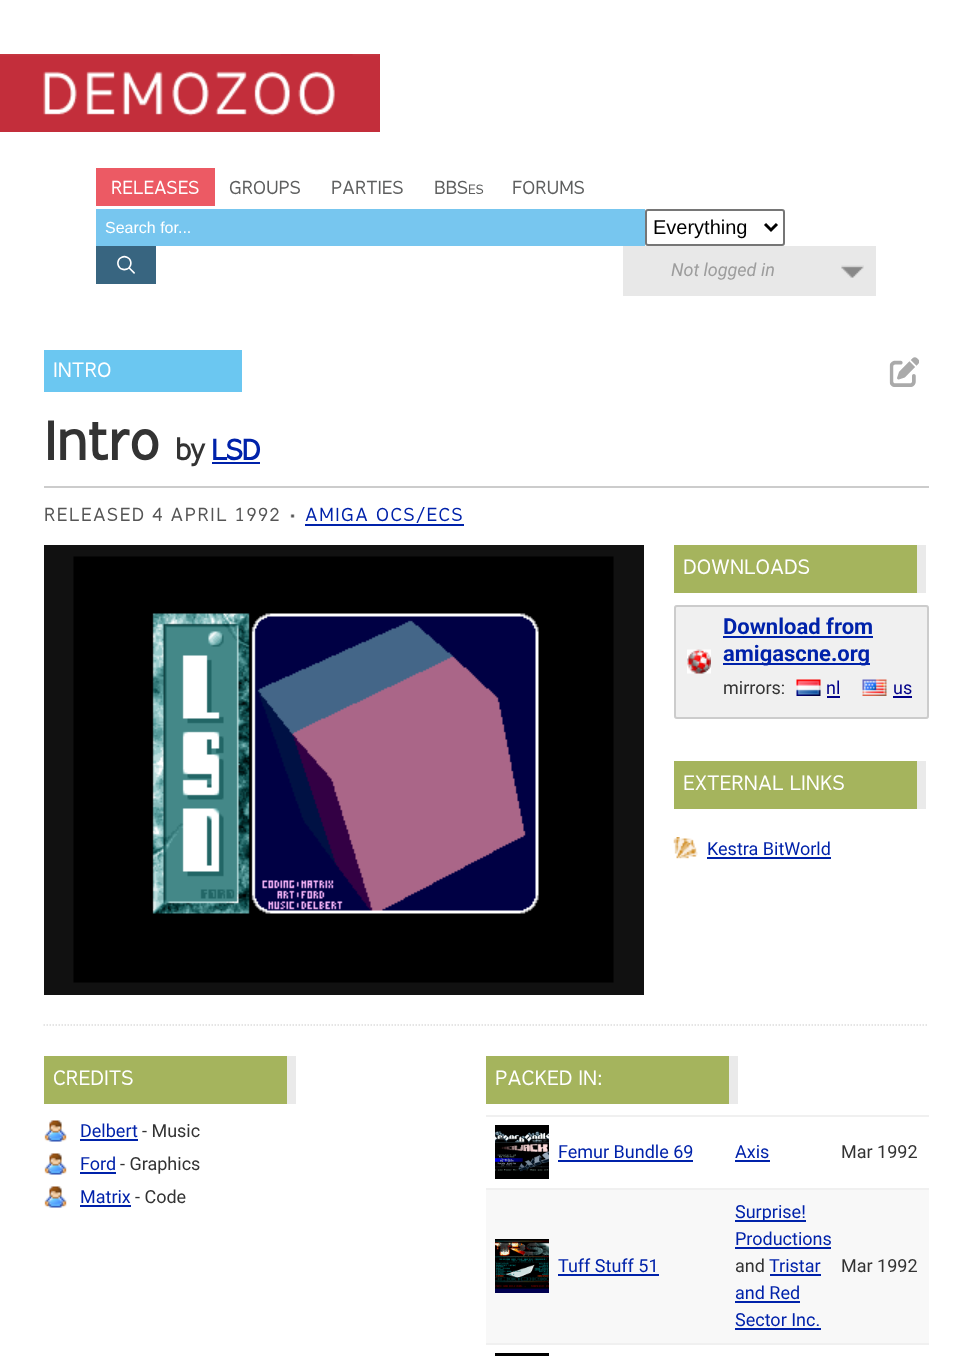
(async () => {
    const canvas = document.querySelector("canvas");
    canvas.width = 972;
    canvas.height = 1356;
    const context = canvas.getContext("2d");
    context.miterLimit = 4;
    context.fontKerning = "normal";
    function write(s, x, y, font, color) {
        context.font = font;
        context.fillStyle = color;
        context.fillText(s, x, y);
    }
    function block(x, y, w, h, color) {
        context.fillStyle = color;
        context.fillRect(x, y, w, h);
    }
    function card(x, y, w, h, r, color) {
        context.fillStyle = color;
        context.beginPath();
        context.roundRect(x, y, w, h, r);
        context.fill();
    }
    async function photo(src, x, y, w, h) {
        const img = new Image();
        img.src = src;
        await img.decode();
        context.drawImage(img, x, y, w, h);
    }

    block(0, 0, 972, 1356, "rgb(255, 255, 255)");
    block(0, 54, 380, 78, "rgb(195, 46, 59)");
    await photo("media/1.png", 0, 54, 380, 62);
    block(96, 168, 119, 38, "rgb(236, 90, 100)");
    write("RELEASES", 111, 194, "18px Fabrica", "rgb(255, 255, 255)");
    write("GROUPS", 229, 194, "18px Fabrica", "rgb(94, 95, 95)");
    write("PARTIES", 331, 194, "18px Fabrica", "rgb(94, 95, 95)");
    write("BBS", 434, 194, "18px Fabrica", "rgb(94, 95, 95)");
    write("ES", 468, 194, "13px Fabrica", "rgb(94, 95, 95)");
    write("FORUMS", 512, 194, "18px Fabrica", "rgb(94, 95, 95)");
    block(96, 209, 549, 37, "rgb(119, 198, 239)");
    write("Search for...", 105, 233, "16px Liberation Sans", "rgb(255, 255, 255)");
    context.beginPath();
    context.roundRect(646, 210, 138, 35, 2);
    context.strokeStyle = "rgb(118, 118, 118)";
    context.lineWidth = 2;
    context.stroke();
    context.beginPath();
    context.moveTo(765, 224);
    context.lineTo(771, 230);
    context.lineTo(777, 224);
    context.strokeStyle = "rgb(0, 0, 0)";
    context.lineWidth = 3;
    context.stroke();
    write("Everything", 653, 234, "20px Liberation Sans", "rgb(0, 0, 0)");
    block(96, 246, 60, 38, "rgb(56, 101, 128)");
    await photo("media/2.png", 117, 255, 18, 19);
    block(623, 246, 253, 50, "rgb(232, 232, 232)");
    await photo("media/3.png", 841, 265, 23, 13);
    write("Not logged in", 671, 276, "italic 18px Roboto", "rgb(157, 157, 157)");
    block(44, 350, 198, 42, "rgb(107, 199, 241)");
    write("INTRO", 53, 377, "20px Fabrica", "rgb(255, 255, 255)");
    await photo("media/4.png", 889, 357, 30, 30);
    write("Intro", 44, 460, "bold 52px Fabrica", "rgb(51, 51, 51)");
    context.letterSpacing = "-1.5px";
    write("by", 175, 460, "bold 28px Fabrica", "rgb(51, 51, 51)");
    write("LSD", 211, 460, "bold 28px Fabrica", "rgb(0, 34, 170)");
    block(212, 462, 48, 2, "rgb(0, 34, 170)");
    block(44, 486, 885, 2, "rgb(204, 204, 204)");
    context.letterSpacing = "1.5px";
    write("RELEASED 4 APRIL 1992", 44, 521, "18px Fabrica", "rgb(85, 85, 85)");
    await photo("media/5.png", 290, 514, 5, 4);
    write("AMIGA OCS/ECS", 305, 521, "18px Fabrica", "rgb(0, 34, 170)");
    block(305, 524, 159, 2, "rgb(0, 34, 170)");
    block(44, 545, 600, 450, "rgb(17, 17, 17)");
    await photo("media/6.png", 73, 556, 541, 427);
    block(674, 545, 243, 48, "rgb(165, 180, 93)");
    block(917, 545, 9, 48, "rgb(234, 234, 234)");
    context.letterSpacing = "0px";
    write("DOWNLOADS", 683, 574, "20px Fabrica", "rgb(255, 255, 255)");
    card(674, 605, 255, 114, 3, "rgb(240, 240, 240)");
    await photo("media/7.png", 687, 649, 24, 25);
    context.beginPath();
    context.roundRect(675, 606, 253, 112, 2);
    context.strokeStyle = "rgb(204, 204, 204)";
    context.lineWidth = 2;
    context.stroke();
    write("Download from", 723, 634, "bold 22px Roboto", "rgb(0, 34, 170)");
    block(723, 636, 150, 2, "rgb(0, 34, 170)");
    block(723, 663, 147, 2, "rgb(0, 34, 170)");
    write("amigascne.org", 723, 661, "bold 22px Roboto", "rgb(0, 34, 170)");
    write("mirrors:", 723, 694, "18px Roboto", "rgb(51, 51, 51)");
    await photo("media/8.png", 796, 679, 25, 17);
    write("nl", 826, 694, "18px Roboto", "rgb(0, 0, 136)");
    block(827, 696, 13, 2, "rgb(0, 0, 136)");
    await photo("media/9.png", 862, 679, 25, 17);
    write("us", 893, 694, "18px Roboto", "rgb(0, 0, 136)");
    block(893, 696, 19, 2, "rgb(0, 0, 136)");
    block(674, 761, 243, 48, "rgb(165, 180, 93)");
    block(917, 761, 9, 48, "rgb(234, 234, 234)");
    write("EXTERNAL LINKS", 683, 790, "20px Fabrica", "rgb(255, 255, 255)");
    await photo("media/10.png", 673, 837, 25, 22);
    write("Kestra BitWorld", 707, 855, "18px Roboto", "rgb(0, 34, 170)");
    block(707, 857, 124, 2, "rgb(0, 34, 170)");
    context.beginPath();
    context.moveTo(43.5, 1025);
    context.lineTo(928.5, 1025);
    context.strokeStyle = "rgb(221, 221, 221)";
    context.lineWidth = 1.5;
    context.setLineDash([1.5, 1.5]);
    context.stroke();
    block(44, 1056, 243, 48, "rgb(165, 180, 93)");
    block(287, 1056, 9, 48, "rgb(234, 234, 234)");
    write("CREDITS", 53, 1085, "20px Fabrica", "rgb(255, 255, 255)");
    await photo("media/11.png", 44, 1120, 23, 22);
    write("Delbert", 80, 1137, "18px Roboto", "rgb(0, 34, 170)");
    block(80, 1139, 58, 2, "rgb(0, 34, 170)");
    write("- Music", 142, 1137, "18px Roboto", "rgb(51, 51, 51)");
    await photo("media/11.png", 44, 1153, 23, 22);
    write("Ford", 80, 1170, "18px Roboto", "rgb(0, 34, 170)");
    block(80, 1172, 36, 2, "rgb(0, 34, 170)");
    write("- Graphics", 120, 1170, "18px Roboto", "rgb(51, 51, 51)");
    await photo("media/11.png", 44, 1186, 23, 22);
    write("Matrix", 80, 1203, "18px Roboto", "rgb(0, 34, 170)");
    block(80, 1205, 51, 2, "rgb(0, 34, 170)");
    write("- Code", 135, 1203, "18px Roboto", "rgb(51, 51, 51)");
    block(486, 1056, 243, 48, "rgb(165, 180, 93)");
    block(729, 1056, 9, 48, "rgb(234, 234, 234)");
    write("PACKED IN:", 495, 1085, "20px Fabrica", "rgb(255, 255, 255)");
    block(486, 1115, 443, 2, "rgb(240, 240, 240)");
    await photo("media/12.png", 495, 1125, 54, 54);
    write("Femur Bundle 69", 558, 1158, "18px Roboto", "rgb(0, 34, 170)");
    block(558, 1160, 135, 2, "rgb(0, 34, 170)");
    write("Axis", 735, 1158, "18px Roboto", "rgb(0, 34, 170)");
    block(735, 1160, 35, 2, "rgb(0, 34, 170)");
    write("Mar 1992", 841, 1158, "18px Roboto", "rgb(51, 51, 51)");
    block(486, 1190, 443, 153, "rgb(248, 248, 248)");
    block(486, 1188, 443, 2, "rgb(240, 240, 240)");
    await photo("media/13.png", 495, 1239, 54, 54);
    write("Tuff Stuff 51", 558, 1272, "18px Roboto", "rgb(0, 34, 170)");
    block(558, 1274, 101, 2, "rgb(0, 34, 170)");
    block(735, 1220, 71, 2, "rgb(0, 34, 170)");
    write("Surprise!", 735, 1218, "18px Roboto", "rgb(0, 34, 170)");
    write("Productions", 735, 1245, "18px Roboto", "rgb(0, 34, 170)");
    block(735, 1247, 96, 2, "rgb(0, 34, 170)");
    write("and", 735, 1272, "18px Roboto", "rgb(51, 51, 51)");
    write("Tristar", 769, 1272, "18px Roboto", "rgb(0, 34, 170)");
    block(770, 1274, 51, 2, "rgb(0, 34, 170)");
    write("and Red", 735, 1299, "18px Roboto", "rgb(0, 34, 170)");
    block(735, 1301, 65, 2, "rgb(0, 34, 170)");
    write("Sector Inc.", 735, 1326, "18px Roboto", "rgb(0, 34, 170)");
    block(735, 1328, 86, 2, "rgb(0, 34, 170)");
    write("Mar 1992", 841, 1272, "18px Roboto", "rgb(51, 51, 51)");
    block(486, 1343, 443, 2, "rgb(240, 240, 240)");
    block(495, 1353, 54, 3, "rgb(0, 0, 0)");
})();
